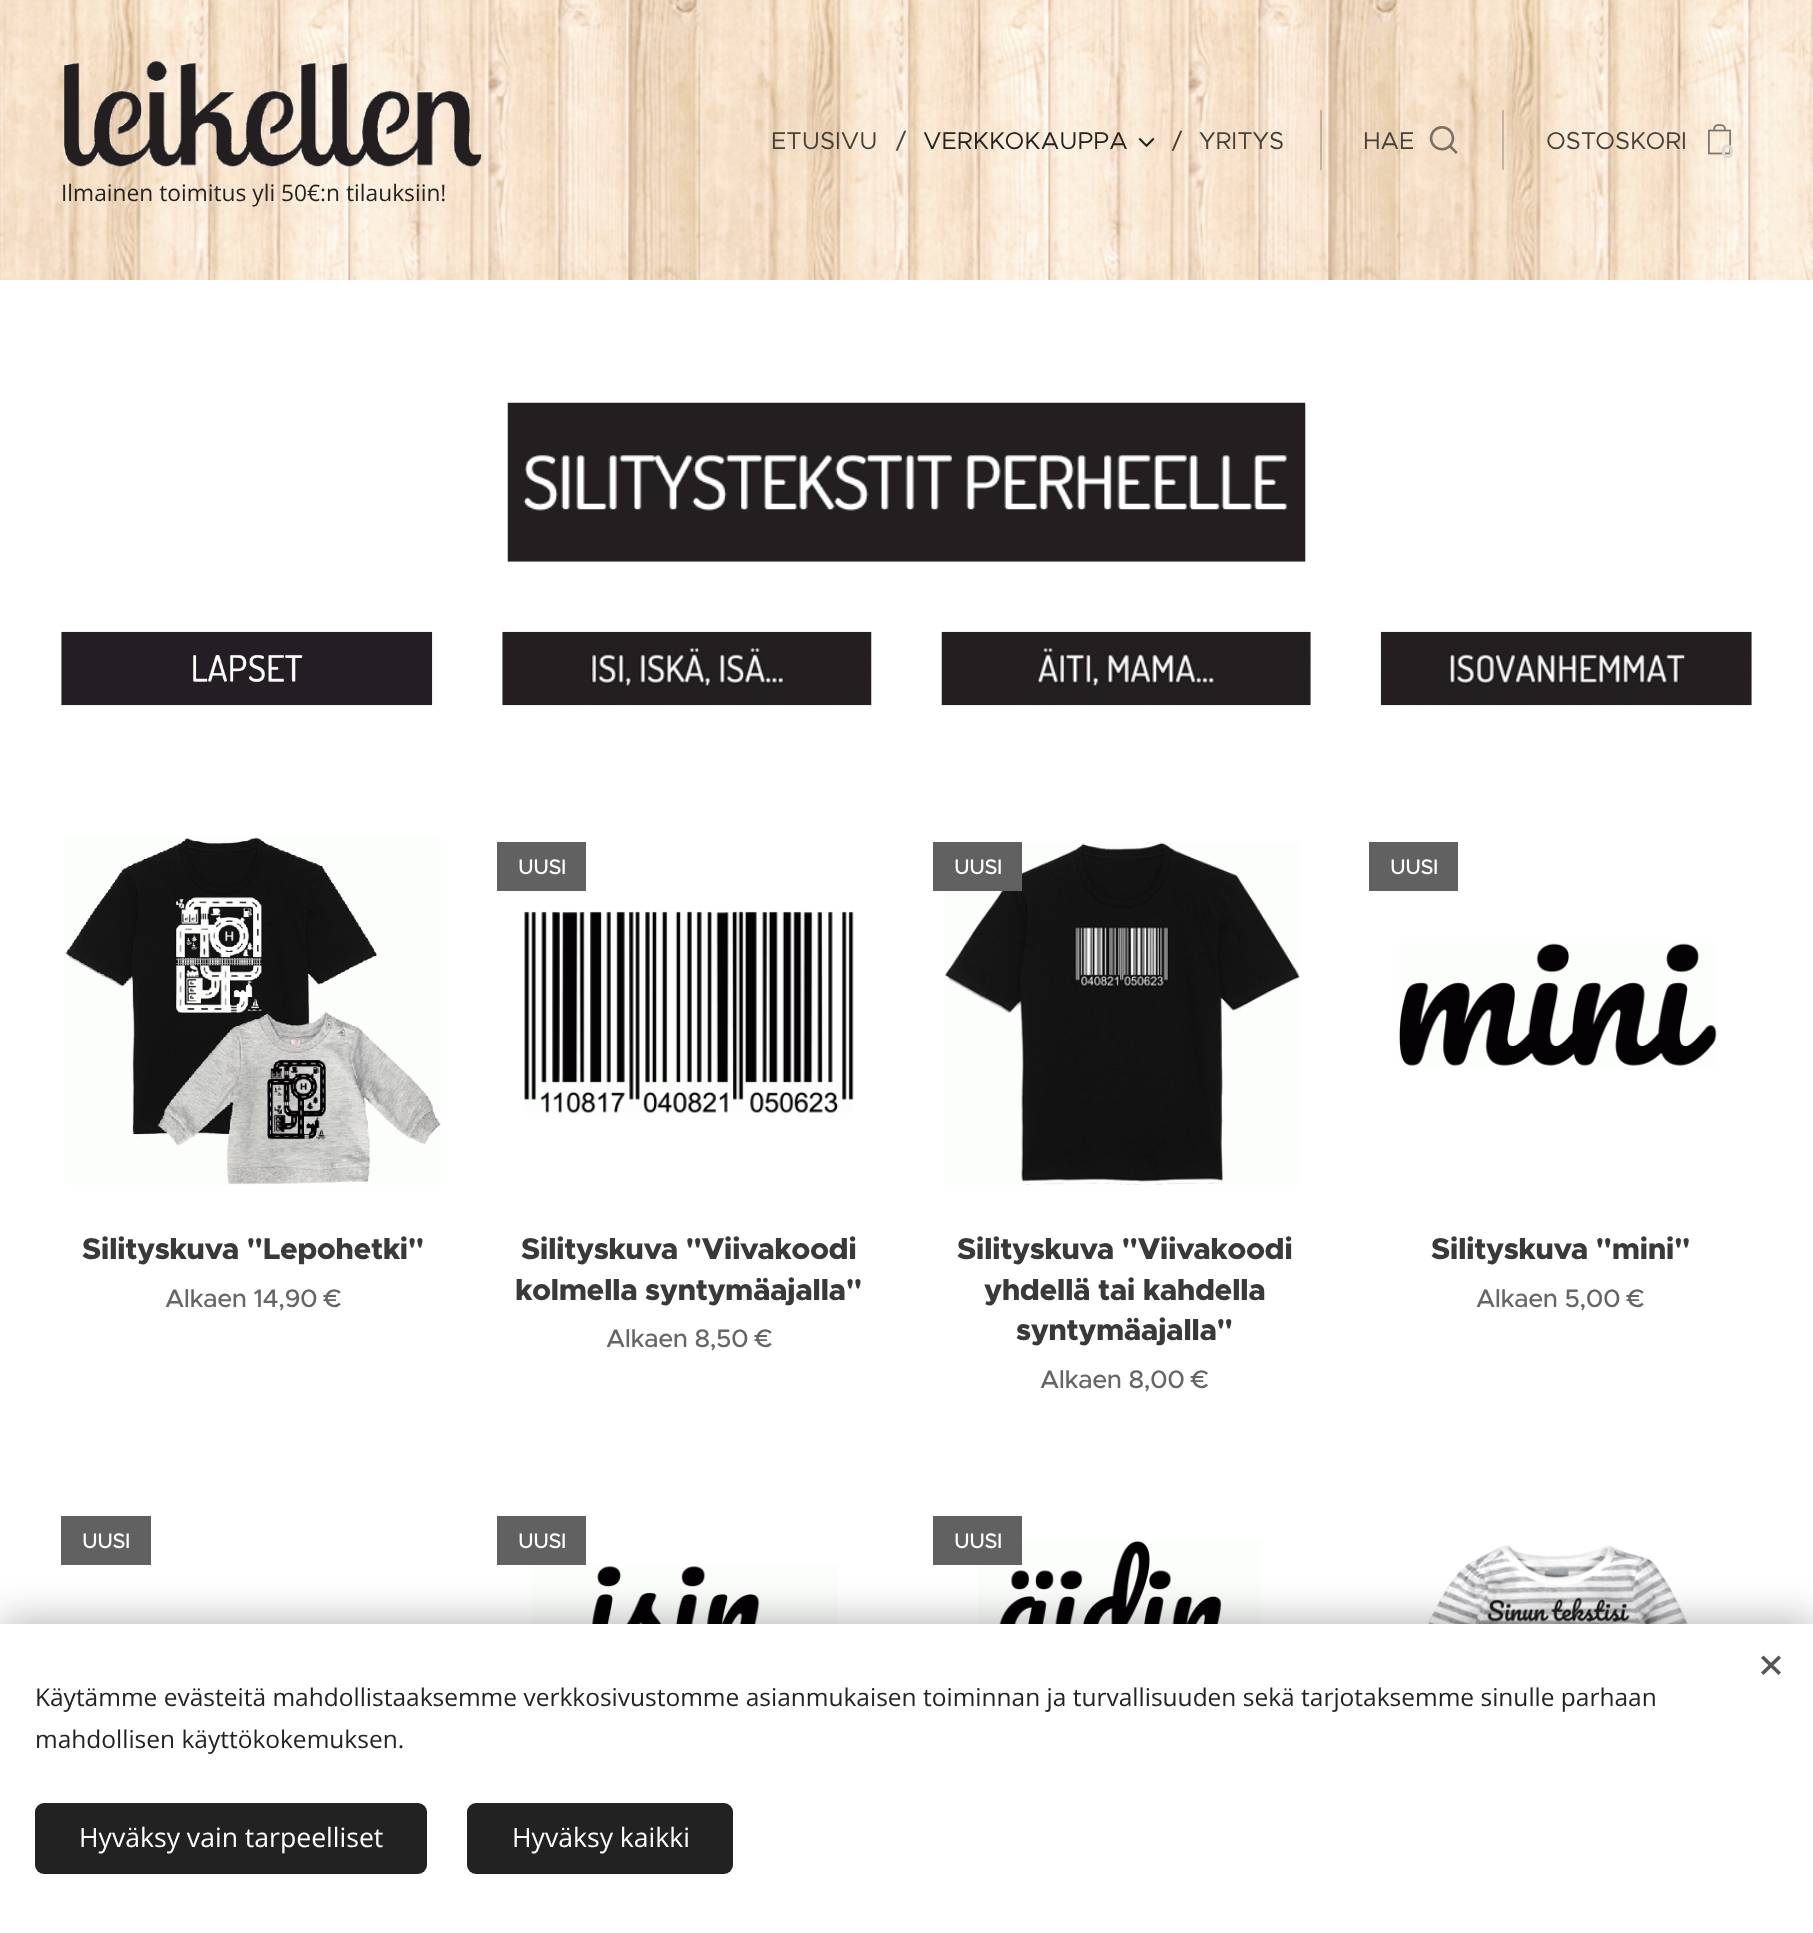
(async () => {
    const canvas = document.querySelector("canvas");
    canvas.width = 1813;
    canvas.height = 1933;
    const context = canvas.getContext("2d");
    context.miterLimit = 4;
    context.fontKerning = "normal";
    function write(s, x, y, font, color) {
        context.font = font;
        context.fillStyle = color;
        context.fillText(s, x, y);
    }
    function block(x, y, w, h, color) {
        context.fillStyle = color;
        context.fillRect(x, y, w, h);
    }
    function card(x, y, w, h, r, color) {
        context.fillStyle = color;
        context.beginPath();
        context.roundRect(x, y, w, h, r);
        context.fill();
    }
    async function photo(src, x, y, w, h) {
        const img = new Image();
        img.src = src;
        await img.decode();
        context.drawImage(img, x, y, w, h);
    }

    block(0, 0, 1813, 1933, "rgb(255, 255, 255)");
    await photo("media/1.png", 0, 0, 1813, 280);
    write("ETUSIVU", 771, 149, "24.5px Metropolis", "rgb(71, 65, 57)");
    write("/", 896, 149, "24.5px Metropolis", "rgb(75, 70, 65)");
    write("VERKKOKAUPPA", 923, 149, "24.5px Metropolis", "rgb(37, 34, 31)");
    write("/", 1172, 149, "24.5px Metropolis", "rgb(71, 65, 57)");
    await photo("media/2.png", 1138, 138, 17, 9);
    write("YRITYS", 1199, 149, "24.5px Metropolis", "rgb(71, 65, 57)");
    block(1320, 110, 2, 60, "rgba(0, 0, 0, 0.2)");
    write("HAE", 1363, 149, "24.5px Metropolis", "rgb(71, 65, 57)");
    await photo("media/3.png", 1429, 126, 29, 28);
    block(1502, 110, 2, 60, "rgba(0, 0, 0, 0.2)");
    write("OSTOSKORI", 1546, 149, "24.5px Metropolis", "rgb(71, 65, 57)");
    await photo("media/4.png", 1708, 124, 23, 31);
    write("0", 1721, 158, "bold 19px Montserrat", "rgb(226, 216, 202)");
    await photo("media/5.png", 64, 61, 418, 106);
    write("Ilmainen toimitus yli 50€:n tilauksiin!", 61, 201, "22.75px Open Sans", "rgb(37, 34, 31)");
    await photo("media/6.png", 507, 402, 799, 160);
    await photo("media/7.png", 61, 631, 372, 75);
    await photo("media/8.png", 502, 631, 370, 75);
    await photo("media/9.png", 941, 631, 370, 75);
    await photo("media/10.png", 1380, 631, 372, 75);
    await photo("media/11.png", 65, 837, 376, 348);
    context.letterSpacing = "-0.5px";
    write("Silityskuva \"Lepohetki\"", 82, 1259, "800 30.1px Metropolis", "rgb(57, 57, 57)");
    write("Alkaen 14,90 €", 165, 1307, "500 25.5px Metropolis", "rgb(102, 102, 102)");
    block(497, 842, 89, 49, "rgb(97, 97, 97)");
    write("UUSI", 518, 874, "500 21px Metropolis", "rgb(255, 255, 255)");
    write("Silityskuva \"Viivakoodi", 521, 1259, "800 30.1px Metropolis", "rgb(57, 57, 57)");
    write("kolmella syntymäajalla\"", 515, 1300, "800 30.1px Metropolis", "rgb(57, 57, 57)");
    write("Alkaen 8,50 €", 606, 1347, "500 25.5px Metropolis", "rgb(102, 102, 102)");
    await photo("media/12.png", 524, 911, 330, 202);
    await photo("media/13.png", 944, 842, 356, 343);
    block(933, 842, 89, 49, "rgb(97, 97, 97)");
    write("UUSI", 954, 874, "500 21px Metropolis", "rgb(255, 255, 255)");
    write("Silityskuva \"Viivakoodi", 957, 1259, "800 30.1px Metropolis", "rgb(57, 57, 57)");
    write("yhdellä tai kahdella", 984, 1300, "800 30.1px Metropolis", "rgb(57, 57, 57)");
    write("syntymäajalla\"", 1016, 1340, "800 30.1px Metropolis", "rgb(57, 57, 57)");
    write("Alkaen 8,00 €", 1040, 1388, "500 25.5px Metropolis", "rgb(102, 102, 102)");
    block(1369, 842, 89, 49, "rgb(97, 97, 97)");
    write("UUSI", 1390, 874, "500 21px Metropolis", "rgb(255, 255, 255)");
    write("Silityskuva \"mini\"", 1431, 1259, "800 30.1px Metropolis", "rgb(57, 57, 57)");
    write("Alkaen 5,00 €", 1476, 1307, "500 25.5px Metropolis", "rgb(102, 102, 102)");
    await photo("media/14.png", 1399, 943, 318, 123);
    block(61, 1516, 90, 49, "rgb(97, 97, 97)");
    write("UUSI", 82, 1548, "500 21px Metropolis", "rgb(255, 255, 255)");
    block(497, 1516, 89, 49, "rgb(97, 97, 97)");
    write("UUSI", 518, 1548, "500 21px Metropolis", "rgb(255, 255, 255)");
    await photo("media/15.png", 533, 1566, 305, 58);
    await photo("media/16.png", 978, 1540, 283, 84);
    block(933, 1516, 89, 49, "rgb(97, 97, 97)");
    write("UUSI", 954, 1548, "500 21px Metropolis", "rgb(255, 255, 255)");
    await photo("media/17.png", 1373, 1545, 374, 79);
    context.fillStyle = "rgba(0, 0, 0, 0.33)";
    context.filter = "blur(22px)";
    context.beginPath();
    context.rect(0, 1624, 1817, 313);
    context.fill();
    context.filter = "none";
    block(0, 1624, 1813, 309, "rgb(255, 255, 255)");
    context.fillStyle = "rgb(85, 85, 85)";
    context.beginPath();
    context.moveTo(1761, 1672.5);
    context.lineTo(1778.5, 1655.5);
    context.lineTo(1781, 1658);
    context.lineTo(1763.5, 1675);
    context.closePath();
    context.fill();
    context.beginPath();
    context.moveTo(1763.5, 1655.5);
    context.lineTo(1781, 1672.5);
    context.lineTo(1778.5, 1675);
    context.lineTo(1761, 1658);
    context.closePath();
    context.fill();
    context.letterSpacing = "0px";
    write("Käytämme evästeitä mahdollistaaksemme verkkosivustomme asianmukaisen toiminnan ja turvallisuuden sekä tarjotaksemme sinulle parhaan", 35, 1706, "24.5px Open Sans", "rgb(37, 34, 31)");
    write("mahdollisen käyttökokemuksen.", 35, 1748, "24.5px Open Sans", "rgb(37, 34, 31)");
    card(35, 1803, 392, 71, 9, "rgb(34, 34, 34)");
    write("Hyväksy vain tarpeelliset", 79, 1847, "26.6px Open Sans", "rgb(255, 255, 255)");
    card(467, 1803, 266, 71, 9, "rgb(34, 34, 34)");
    write("Hyväksy kaikki", 512, 1847, "26.6px Open Sans", "rgb(255, 255, 255)");
})();
